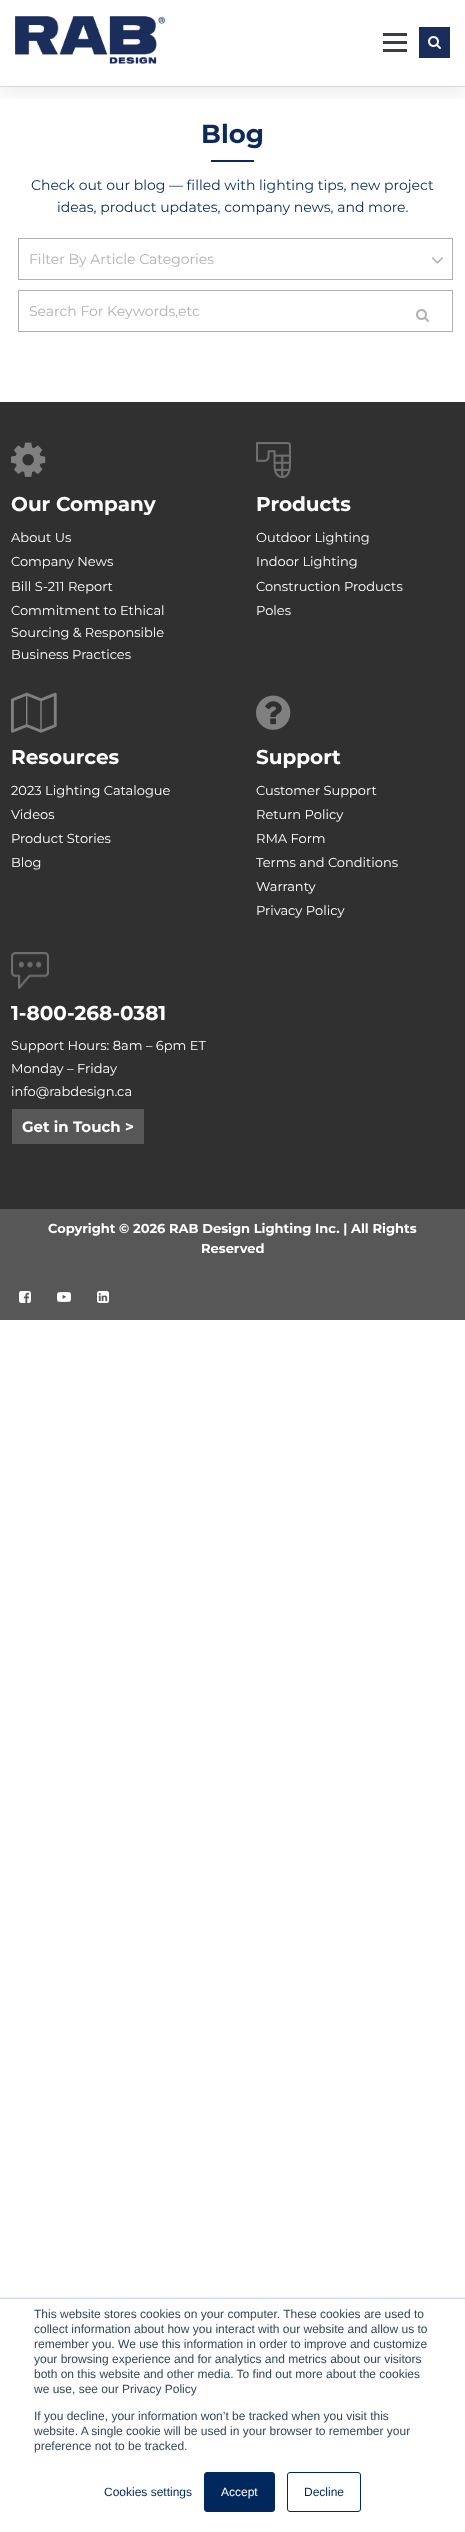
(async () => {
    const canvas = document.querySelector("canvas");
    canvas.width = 465;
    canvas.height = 2532;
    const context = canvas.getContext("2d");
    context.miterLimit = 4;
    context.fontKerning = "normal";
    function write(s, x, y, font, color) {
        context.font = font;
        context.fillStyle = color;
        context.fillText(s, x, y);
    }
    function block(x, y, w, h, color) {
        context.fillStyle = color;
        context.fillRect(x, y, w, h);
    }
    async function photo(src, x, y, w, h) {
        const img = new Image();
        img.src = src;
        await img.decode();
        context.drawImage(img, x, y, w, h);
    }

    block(0, 0, 465, 2532, "rgb(255, 255, 255)");
    context.save();
    context.beginPath();
    context.rect(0, 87, 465, 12);
    context.clip();
    context.fillStyle = "rgba(0, 0, 0, 0.05)";
    context.filter = "blur(7.5px)";
    context.beginPath();
    context.rect(0, 9, 465, 88);
    context.fill();
    context.filter = "none";
    context.restore();
    block(0, 86, 465, 1, "rgb(216, 216, 216)");
    await photo("media/1.png", 15, 16, 150, 48);
    block(383, 33, 24, 3, "rgb(56, 62, 65)");
    block(383, 41, 24, 3, "rgb(56, 62, 65)");
    block(383, 49, 24, 3, "rgb(56, 62, 65)");
    block(419, 27, 31, 31, "rgb(27, 45, 91)");
    await photo("media/2.png", 428, 36, 13, 13);
    write("Blog", 201, 143, "bold 26px Montserrat", "rgb(12, 43, 90)");
    block(211, 160, 43, 2, "rgb(12, 40, 93)");
    write("Check out our blog — filled with lighting tips, new project", 31, 190, "14px Montserrat", "rgb(0, 40, 93)");
    write("ideas, product updates, company news, and more.", 57, 212, "14px Montserrat", "rgb(0, 40, 93)");
    context.strokeStyle = "rgb(177, 177, 177)";
    context.strokeRect(18.5, 238.5, 434, 41);
    write("Filter By Article Categories", 29, 264, "14px Montserrat", "rgb(177, 177, 177)");
    await photo("media/3.png", 432, 257, 11, 7);
    context.strokeRect(18.5, 290.5, 434, 41);
    write("Search For Keywords,etc", 29, 316, "14px Montserrat", "rgb(177, 177, 177)");
    await photo("media/4.png", 416, 309, 13, 13);
    block(0, 402, 465, 807, "rgb(48, 48, 48)");
    await photo("media/5.png", 11, 442, 35, 35);
    write("Our Company", 11, 511, "bold 20px Montserrat", "rgb(255, 255, 255)");
    write("About Us", 11, 542, "13px Montserrat", "rgb(255, 255, 255)");
    write("Company News", 11, 566, "13px Montserrat", "rgb(255, 255, 255)");
    write("Bill S-211 Report", 11, 591, "13px Montserrat", "rgb(255, 255, 255)");
    write("Commitment to Ethical", 11, 615, "13px Montserrat", "rgb(255, 255, 255)");
    write("Sourcing & Responsible", 11, 637, "13px Montserrat", "rgb(255, 255, 255)");
    write("Business Practices", 11, 659, "13px Montserrat", "rgb(255, 255, 255)");
    await photo("media/6.png", 256, 442, 35, 36);
    write("Products", 256, 511, "bold 20px Montserrat", "rgb(255, 255, 255)");
    write("Outdoor Lighting", 256, 542, "13px Montserrat", "rgb(255, 255, 255)");
    write("Indoor Lighting", 256, 566, "13px Montserrat", "rgb(255, 255, 255)");
    write("Construction Products", 256, 591, "13px Montserrat", "rgb(255, 255, 255)");
    write("Poles", 256, 615, "13px Montserrat", "rgb(255, 255, 255)");
    await photo("media/7.png", 11, 692, 46, 41);
    write("Resources", 11, 764, "bold 20px Montserrat", "rgb(255, 255, 255)");
    write("2023 Lighting Catalogue", 11, 795, "13px Montserrat", "rgb(255, 255, 255)");
    write("Videos", 11, 819, "13px Montserrat", "rgb(255, 255, 255)");
    write("Product Stories", 11, 843, "13px Montserrat", "rgb(255, 255, 255)");
    write("Blog", 11, 867, "13px Montserrat", "rgb(255, 255, 255)");
    await photo("media/8.png", 256, 695, 35, 35);
    write("Support", 256, 764, "bold 20px Montserrat", "rgb(255, 255, 255)");
    write("Customer Support", 256, 795, "13px Montserrat", "rgb(255, 255, 255)");
    write("Return Policy", 256, 819, "13px Montserrat", "rgb(255, 255, 255)");
    write("RMA Form", 256, 843, "13px Montserrat", "rgb(255, 255, 255)");
    write("Terms and Conditions", 256, 867, "13px Montserrat", "rgb(255, 255, 255)");
    write("Warranty", 256, 891, "13px Montserrat", "rgb(255, 255, 255)");
    write("Privacy Policy", 256, 915, "13px Montserrat", "rgb(255, 255, 255)");
    await photo("media/9.png", 11, 952, 38, 37);
    write("1-800-268-0381", 11, 1020, "bold 20px Montserrat", "rgb(255, 255, 255)");
    write("Support Hours: 8am – 6pm ET", 11, 1050, "13px Montserrat", "rgb(255, 255, 255)");
    write("Monday – Friday", 11, 1073, "13px Montserrat", "rgb(255, 255, 255)");
    write("info@rabdesign.ca", 11, 1096, "13px Montserrat", "rgb(255, 255, 255)");
    block(12, 1109, 132, 35, "rgb(87, 87, 87)");
    write("Get in Touch >", 22, 1132, "bold 15px Montserrat", "rgb(255, 255, 255)");
    block(0, 1209, 465, 111, "rgb(87, 87, 87)");
    write("Copyright © 2026 RAB Design Lighting Inc. | All Rights", 48, 1233, "bold 13px Montserrat", "rgb(255, 255, 255)");
    write("Reserved", 201, 1253, "bold 13px Montserrat", "rgb(255, 255, 255)");
    await photo("media/10.png", 19, 1291, 12, 12);
    await photo("media/11.png", 57, 1292, 14, 10);
    await photo("media/12.png", 97, 1291, 12, 12);
    context.save();
    context.beginPath();
    context.rect(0, 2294, 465, 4);
    context.clip();
    context.fillStyle = "rgb(234, 240, 246)";
    context.filter = "blur(1.5px)";
    context.beginPath();
    context.rect(0, 2297, 465, 234);
    context.fill();
    context.filter = "none";
    context.restore();
    block(0, 2298, 465, 1, "rgb(203, 214, 226)");
    write("This website stores cookies on your computer. These cookies are used to", 34, 2318, "12px Liberation Sans", "rgb(51, 71, 91)");
    write("collect information about how you interact with our website and allow us to", 34, 2333, "12px Liberation Sans", "rgb(51, 71, 91)");
    write("remember you. We use this information in order to improve and customize", 34, 2348, "12px Liberation Sans", "rgb(51, 71, 91)");
    write("your browsing experience and for analytics and metrics about our visitors", 34, 2363, "12px Liberation Sans", "rgb(51, 71, 91)");
    write("both on this website and other media. To find out more about the cookies", 34, 2378, "12px Liberation Sans", "rgb(51, 71, 91)");
    write("we use, see our Privacy Policy", 34, 2393, "12px Liberation Sans", "rgb(51, 71, 91)");
    write("If you decline, your information won’t be tracked when you visit this", 34, 2420, "12px Liberation Sans", "rgb(51, 71, 91)");
    write("website. A single cookie will be used in your browser to remember your", 34, 2435, "12px Liberation Sans", "rgb(51, 71, 91)");
    write("preference not to be tracked.", 34, 2450, "12px Liberation Sans", "rgb(51, 71, 91)");
    write("Cookies settings", 104, 2496, "12px Liberation Sans", "rgb(0, 40, 93)");
    context.beginPath();
    context.roundRect(204.5, 2472.5, 70, 39, 2.5);
    context.fill();
    context.strokeStyle = "rgb(0, 40, 93)";
    context.stroke();
    write("Accept", 221, 2496, "12px Liberation Sans", "rgb(255, 255, 255)");
    context.beginPath();
    context.roundRect(287.5, 2472.5, 73, 39, 2.5);
    context.stroke();
    write("Decline", 304, 2496, "12px Liberation Sans", "rgb(0, 40, 93)");
})();
